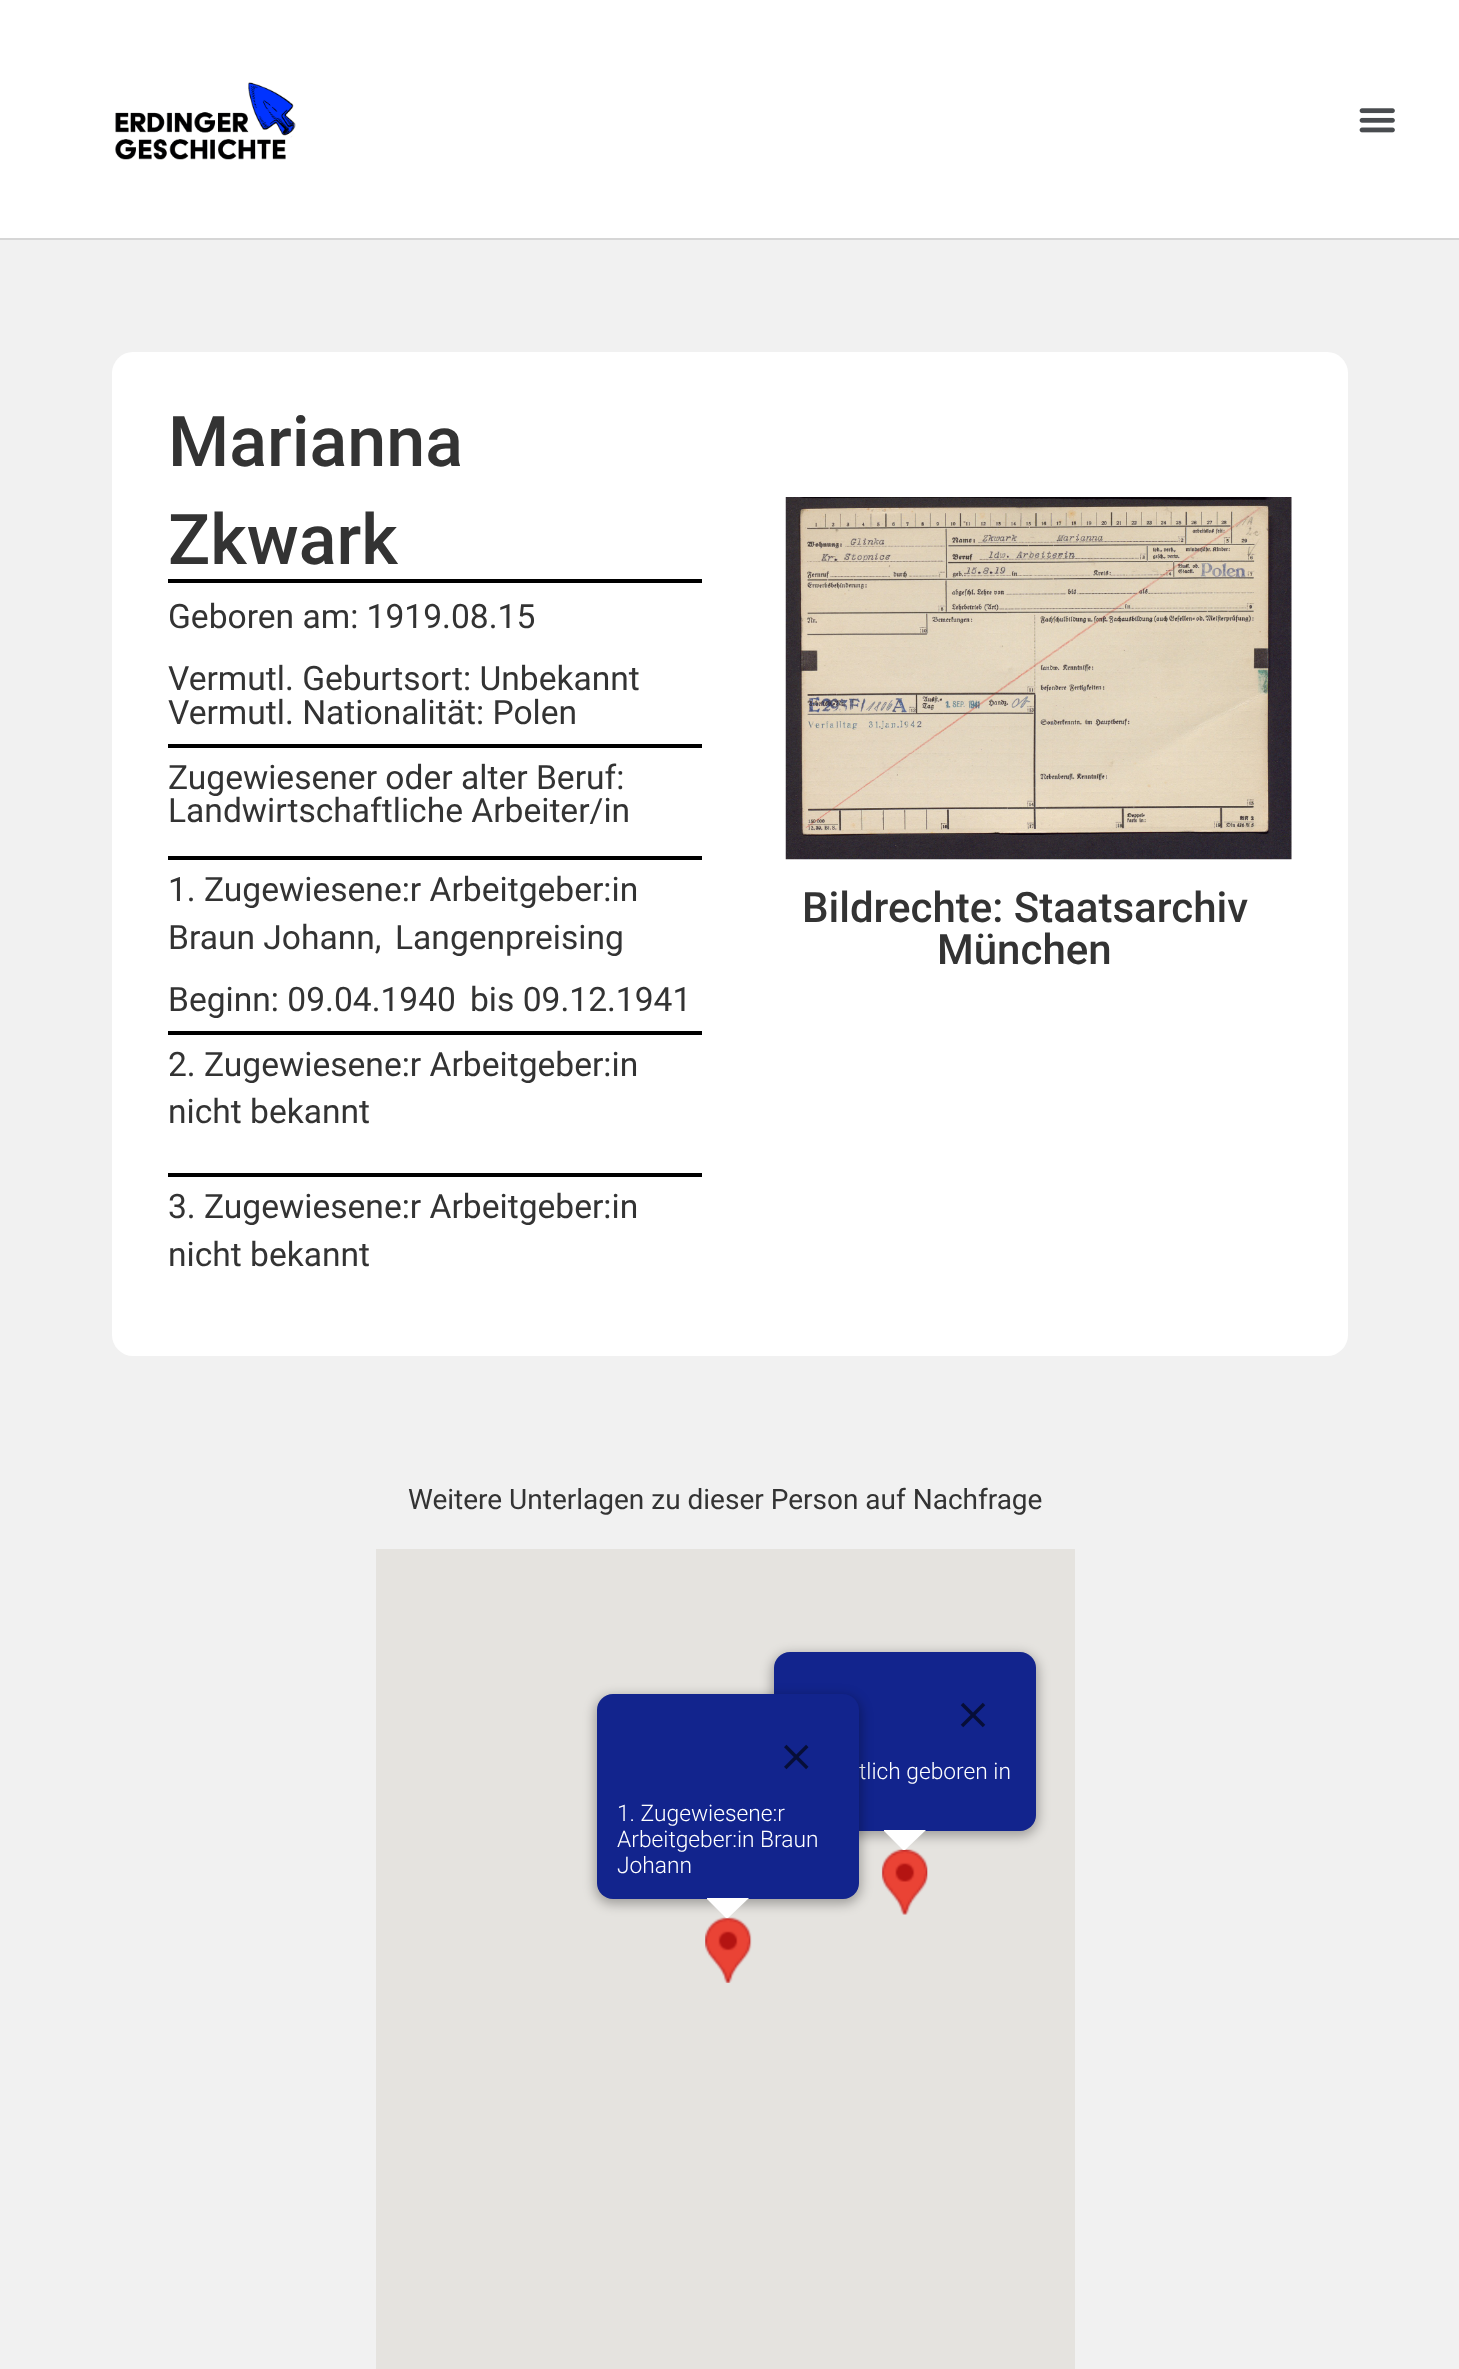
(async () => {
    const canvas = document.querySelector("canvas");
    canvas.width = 1459;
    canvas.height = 2369;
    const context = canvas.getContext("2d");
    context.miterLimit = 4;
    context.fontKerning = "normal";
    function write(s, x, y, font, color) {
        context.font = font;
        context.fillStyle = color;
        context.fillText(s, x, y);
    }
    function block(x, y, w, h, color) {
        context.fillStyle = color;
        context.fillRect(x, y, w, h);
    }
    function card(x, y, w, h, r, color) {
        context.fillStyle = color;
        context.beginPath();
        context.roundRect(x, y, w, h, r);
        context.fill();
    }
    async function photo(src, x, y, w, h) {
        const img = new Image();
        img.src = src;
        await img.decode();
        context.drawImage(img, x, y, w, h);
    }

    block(0, 0, 1459, 2369, "rgb(255, 255, 255)");
    block(0, 238, 1459, 2, "rgb(214, 214, 214)");
    await photo("media/1.png", 115, 82, 181, 78);
    await photo("media/2.png", 1359, 108, 36, 25);
    block(0, 240, 1459, 2129, "rgb(241, 241, 241)");
    context.fillStyle = "rgb(255, 255, 255)";
    context.beginPath();
    context.roundRect(112, 352, 618, 1004, [21, 0, 0, 21]);
    context.fill();
    write("Marianna", 168, 466, "500 70px Roboto", "rgb(51, 51, 51)");
    write("Zkwark", 168, 564, "500 70px Roboto", "rgb(51, 51, 51)");
    block(168, 579, 534, 4, "rgb(0, 0, 0)");
    write("Geboren am: 1919.08.15", 168, 628, "33.6px Roboto", "rgb(51, 51, 51)");
    write("Vermutl. Geburtsort: Unbekannt", 168, 690, "33.6px Roboto", "rgb(51, 51, 51)");
    write("Vermutl. Nationalität: Polen", 168, 724, "33.6px Roboto", "rgb(51, 51, 51)");
    block(168, 744, 534, 4, "rgb(0, 0, 0)");
    write("Zugewiesener oder alter Beruf:", 168, 789, "33.6px Roboto", "rgb(51, 51, 51)");
    write("Landwirtschaftliche Arbeiter/in", 168, 822, "33.6px Roboto", "rgb(51, 51, 51)");
    block(168, 856, 534, 4, "rgb(0, 0, 0)");
    write("1. Zugewiesene:r Arbeitgeber:in", 168, 901, "33.6px Roboto", "rgb(51, 51, 51)");
    write("Braun Johann,", 168, 949, "33.6px Roboto", "rgb(51, 51, 51)");
    write("Langenpreising", 395, 949, "33.6px Roboto", "rgb(51, 51, 51)");
    write("Beginn: 09.04.1940", 168, 1011, "33.6px Roboto", "rgb(51, 51, 51)");
    write("bis 09.12.1941", 470, 1011, "33.6px Roboto", "rgb(51, 51, 51)");
    block(168, 1031, 534, 4, "rgb(0, 0, 0)");
    write("2. Zugewiesene:r Arbeitgeber:in", 168, 1076, "33.6px Roboto", "rgb(51, 51, 51)");
    write("nicht bekannt", 168, 1123, "33.6px Roboto", "rgb(51, 51, 51)");
    block(168, 1173, 534, 4, "rgb(0, 0, 0)");
    write("3. Zugewiesene:r Arbeitgeber:in", 168, 1218, "33.6px Roboto", "rgb(51, 51, 51)");
    write("nicht bekannt", 168, 1266, "33.6px Roboto", "rgb(51, 51, 51)");
    context.fillStyle = "rgb(255, 255, 255)";
    context.beginPath();
    context.roundRect(730, 352, 618, 1004, [0, 21, 21, 0]);
    context.fill();
    await photo("media/3.png", 785, 497, 507, 363);
    write("Bildrechte: Staatsarchiv", 802, 922, "500 42px Roboto", "rgb(51, 51, 51)");
    write("München", 937, 964, "500 42px Roboto", "rgb(51, 51, 51)");
    write("Weitere Unterlagen zu dieser Person auf Nachfrage", 408, 1509, "28px Roboto", "rgb(51, 51, 51)");
    block(376, 1549, 699, 820, "rgb(229, 227, 223)");
    await photo("media/6.png", 881, 1849, 47, 66);
    context.fillStyle = "rgba(0, 0, 0, 0.3)";
    context.filter = "blur(6px)";
    context.beginPath();
    context.roundRect(772, 1654, 266, 182, 18);
    context.fill();
    context.filter = "none";
    card(774, 1652, 262, 179, 16, "rgb(18, 36, 141)");
    await photo("media/4.png", 960, 1702, 26, 26);
    write("tlich geboren in", 859, 1779, "300 22.75px Roboto", "rgb(255, 255, 255)");
    context.beginPath();
    context.moveTo(884, 1831);
    context.lineTo(884, 1830);
    context.lineTo(926, 1830);
    context.lineTo(905, 1850);
    context.lineTo(903, 1850);
    context.closePath();
    context.fill();
    await photo("media/7.png", 705, 1917, 47, 66);
    context.fillStyle = "rgba(0, 0, 0, 0.3)";
    context.filter = "blur(6px)";
    context.beginPath();
    context.roundRect(595, 1696, 266, 208, 18);
    context.fill();
    context.filter = "none";
    card(597, 1694, 262, 205, 16, "rgb(18, 36, 141)");
    await photo("media/5.png", 784, 1744, 25, 26);
    write("1. Zugewiesene:r", 617, 1821, "300 22.75px Roboto", "rgb(255, 255, 255)");
    write("Arbeitgeber:in Braun", 617, 1847, "300 22.75px Roboto", "rgb(255, 255, 255)");
    write("Johann", 617, 1873, "300 22.75px Roboto", "rgb(255, 255, 255)");
    context.beginPath();
    context.moveTo(707, 1899);
    context.lineTo(707, 1898);
    context.lineTo(749, 1898);
    context.lineTo(728, 1918);
    context.lineTo(726, 1918);
    context.closePath();
    context.fill();
})();
